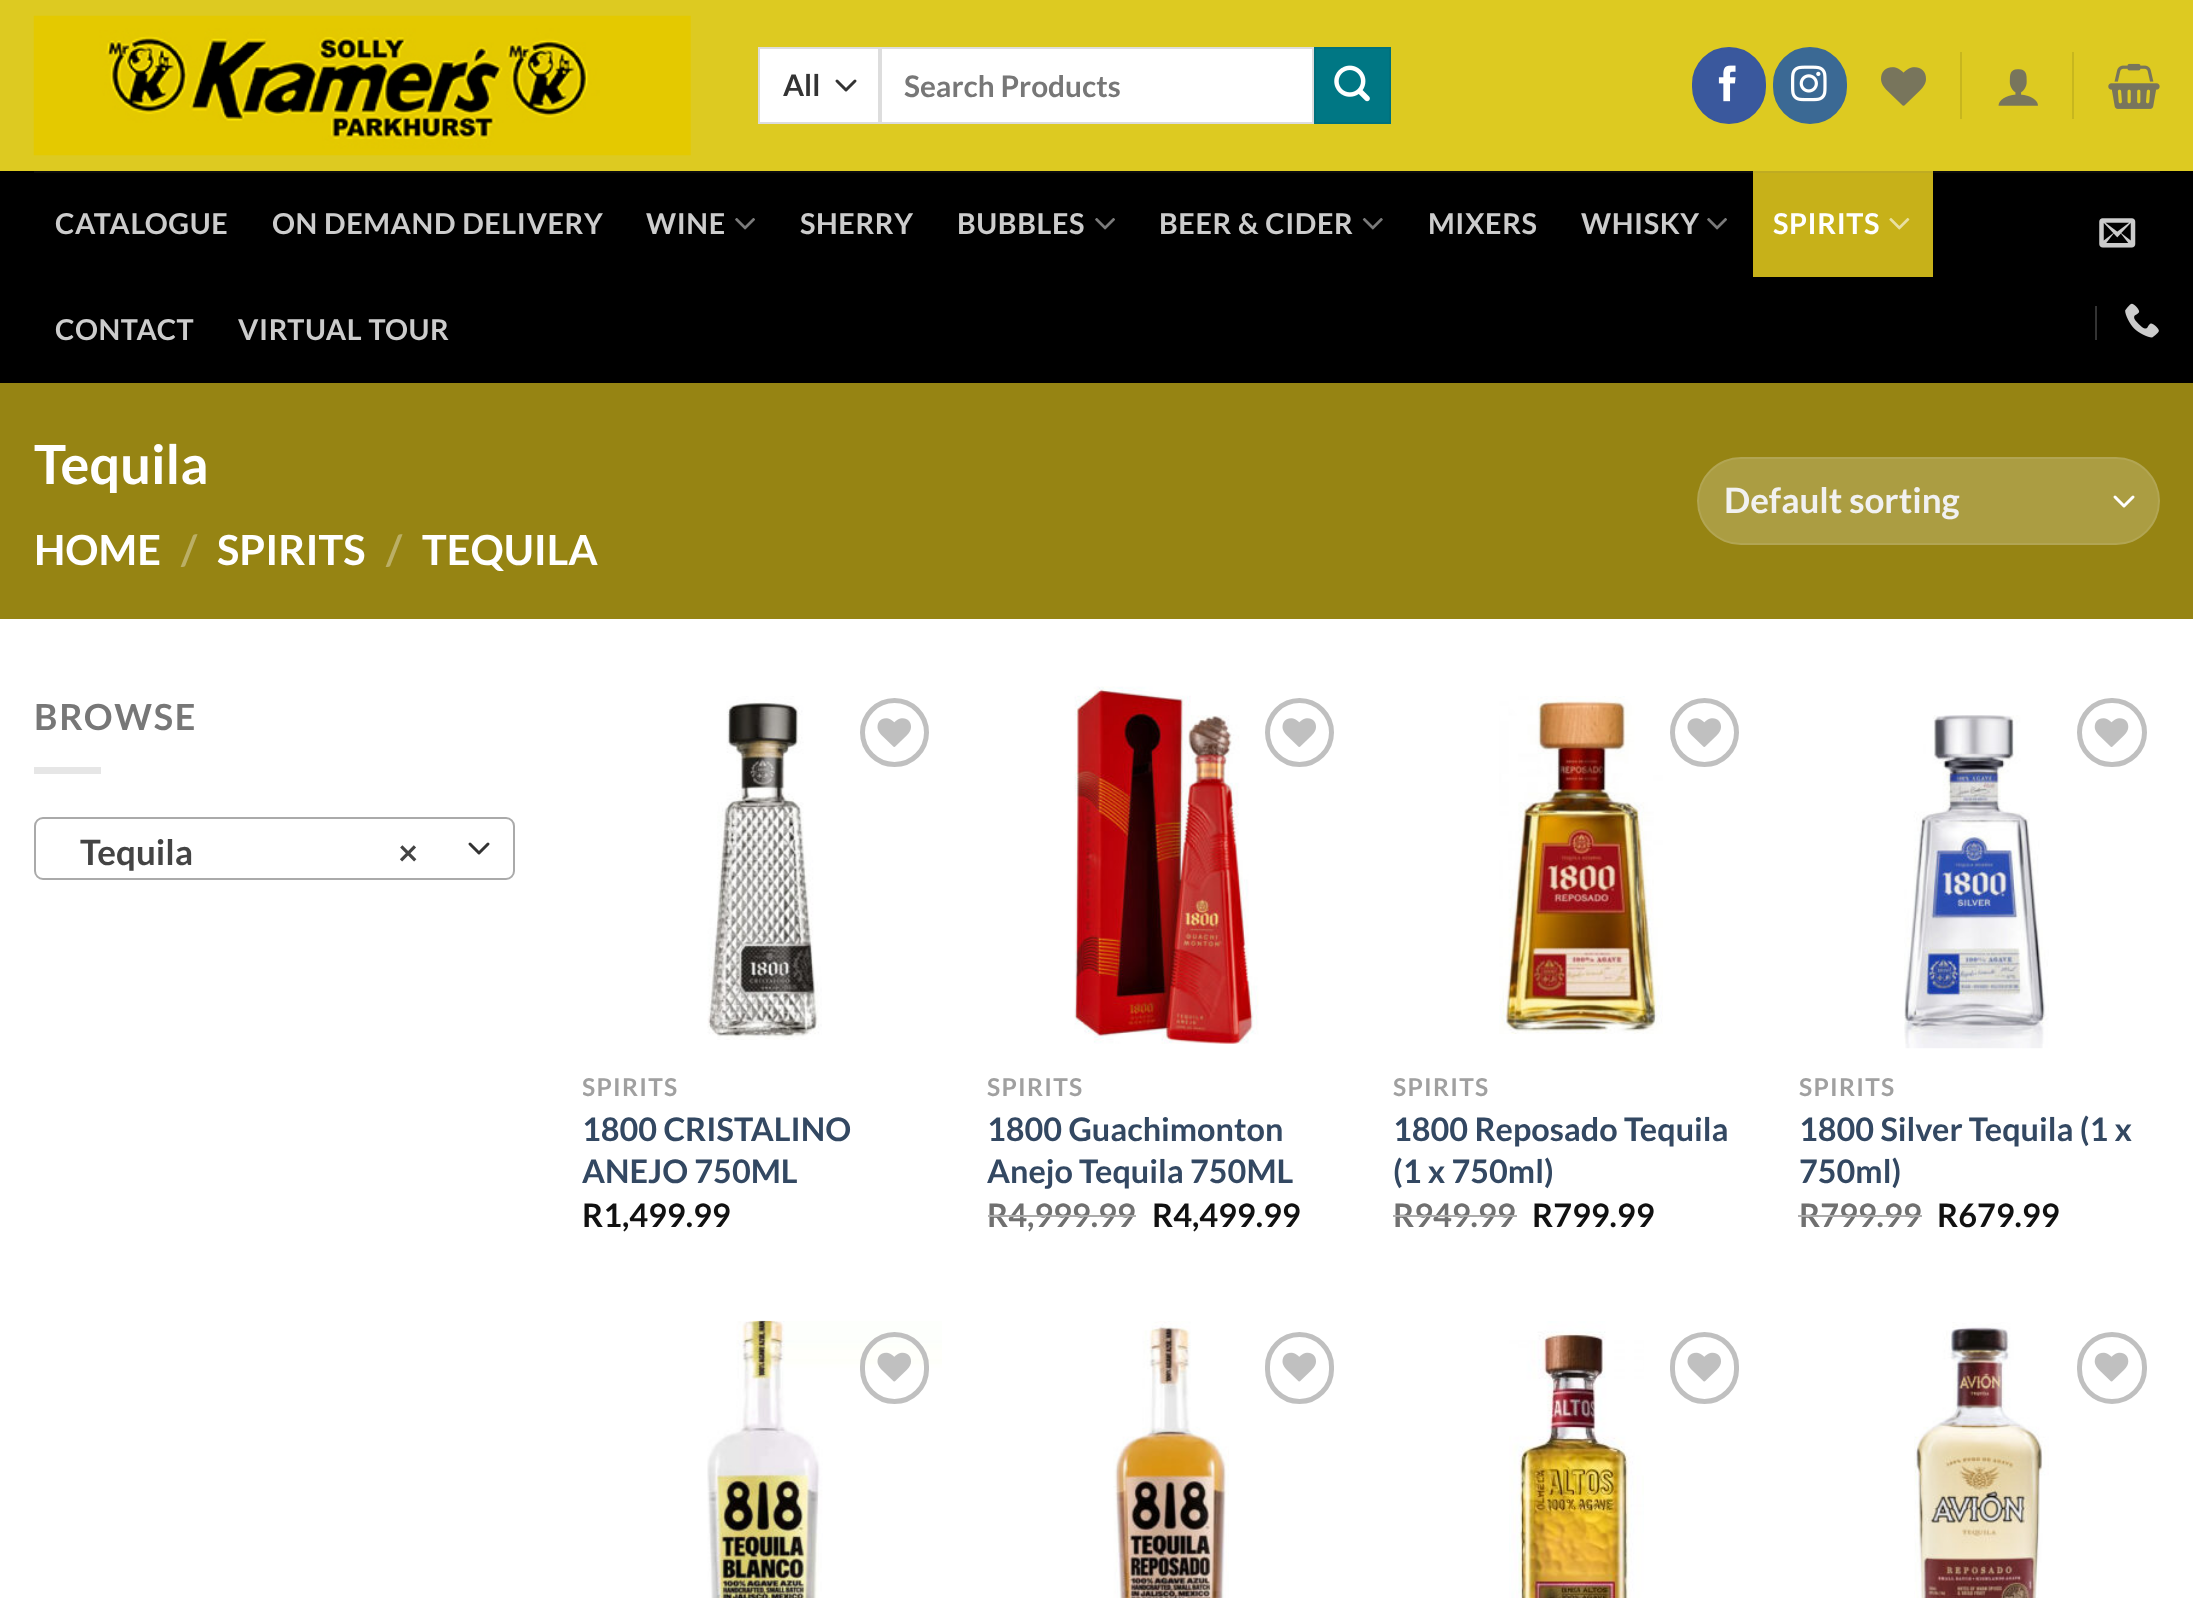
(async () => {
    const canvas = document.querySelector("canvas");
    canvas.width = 2193;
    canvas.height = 1598;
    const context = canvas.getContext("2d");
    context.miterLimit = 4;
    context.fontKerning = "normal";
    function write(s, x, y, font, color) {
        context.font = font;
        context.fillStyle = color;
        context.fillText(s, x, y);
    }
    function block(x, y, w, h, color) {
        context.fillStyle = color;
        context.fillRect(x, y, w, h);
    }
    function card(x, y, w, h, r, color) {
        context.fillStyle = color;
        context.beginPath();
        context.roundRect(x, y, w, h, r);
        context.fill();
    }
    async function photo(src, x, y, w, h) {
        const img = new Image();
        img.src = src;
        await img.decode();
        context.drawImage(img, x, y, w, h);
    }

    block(0, 0, 2193, 1598, "rgb(255, 255, 255)");
    block(0, 0, 2193, 171, "rgb(221, 202, 33)");
    await photo("media/1.png", 33, 15, 658, 141);
    block(760, 49, 118, 73, "rgb(255, 255, 255)");
    context.beginPath();
    context.moveTo(837, 81);
    context.lineTo(846, 90);
    context.lineTo(855, 81);
    context.strokeStyle = "rgb(51, 51, 51)";
    context.lineWidth = 3;
    context.lineCap = "round";
    context.lineJoin = "round";
    context.stroke();
    context.strokeStyle = "rgb(221, 221, 221)";
    context.lineWidth = 2;
    context.lineJoin = "miter";
    context.strokeRect(759, 48, 120, 75);
    write("All", 783, 96, "bold 29.75px Lato", "rgb(51, 51, 51)");
    context.fillStyle = "rgb(255, 255, 255)";
    context.beginPath();
    context.rect(881, 48, 432, 75);
    context.fill();
    context.stroke();
    write("Search Products", 904, 97, "bold 29.75px Lato", "rgb(119, 119, 119)");
    context.fillStyle = "rgb(0, 119, 132)";
    context.beginPath();
    context.rect(1315, 48, 75, 75);
    context.fill();
    context.strokeStyle = "rgb(0, 113, 125)";
    context.stroke();
    await photo("media/2.png", 1334, 65, 36, 37);
    context.fillStyle = "rgb(58, 88, 157)";
    context.beginPath();
    context.roundRect(1693, 48, 72, 75, 36);
    context.fill();
    context.strokeStyle = "rgb(58, 88, 157)";
    context.stroke();
    await photo("media/3.png", 1718, 65, 18, 37);
    context.fillStyle = "rgb(59, 105, 148)";
    context.beginPath();
    context.roundRect(1774, 48, 72, 75, 36);
    context.fill();
    context.strokeStyle = "rgb(59, 105, 148)";
    context.stroke();
    await photo("media/4.png", 1791, 65, 36, 37);
    await photo("media/5.png", 1881, 67, 45, 39);
    block(1960, 52, 2, 67, "rgb(199, 182, 30)");
    await photo("media/6.png", 1998, 69, 40, 37);
    block(2072, 52, 2, 67, "rgb(199, 182, 30)");
    await photo("media/7.png", 2108, 63, 52, 46);
    block(0, 171, 2193, 212, "rgb(0, 0, 0)");
    block(34, 171, 2126, 2, "rgb(12, 12, 12)");
    context.letterSpacing = "0.6px";
    write("CATALOGUE", 55, 234, "bold 28.75px Lato", "rgb(204, 204, 204)");
    write("ON DEMAND DELIVERY", 272, 234, "bold 28.75px Lato", "rgb(204, 204, 204)");
    write("WINE", 646, 234, "bold 28.75px Lato", "rgb(204, 204, 204)");
    await photo("media/8.png", 735, 218, 20, 12);
    write("SHERRY", 800, 234, "bold 28.75px Lato", "rgb(204, 204, 204)");
    write("BUBBLES", 957, 234, "bold 28.75px Lato", "rgb(204, 204, 204)");
    await photo("media/8.png", 1095, 218, 20, 12);
    write("BEER & CIDER", 1159, 234, "bold 28.75px Lato", "rgb(204, 204, 204)");
    await photo("media/9.png", 1362, 218, 21, 12);
    write("MIXERS", 1428, 234, "bold 28.75px Lato", "rgb(204, 204, 204)");
    write("WHISKY", 1581, 234, "bold 28.75px Lato", "rgb(204, 204, 204)");
    await photo("media/8.png", 1707, 218, 20, 12);
    block(1753, 173, 180, 104, "rgb(199, 177, 25)");
    block(1753, 171, 180, 2, "rgb(191, 171, 34)");
    write("SPIRITS", 1773, 234, "bold 28.75px Lato", "rgb(255, 255, 255)");
    await photo("media/10.png", 1889, 217, 21, 13);
    write("CONTACT", 55, 340, "bold 28.75px Lato", "rgb(204, 204, 204)");
    write("VIRTUAL TOUR", 238, 340, "bold 28.75px Lato", "rgb(204, 204, 204)");
    await photo("media/11.png", 2099, 218, 37, 30);
    block(2095, 306, 2, 34, "rgb(51, 51, 51)");
    await photo("media/12.png", 2125, 303, 34, 35);
    block(0, 383, 2193, 236, "rgb(150, 132, 19)");
    context.letterSpacing = "0px";
    write("Tequila", 34, 484, "bold 54px Lato", "rgb(255, 255, 255)");
    write("HOME", 34, 565, "bold 41.5px Lato", "rgb(255, 255, 255)");
    write("/", 181, 565, "bold 41.5px Lato", "rgb(187, 175, 102)");
    write("SPIRITS", 217, 565, "bold 41.5px Lato", "rgb(255, 255, 255)");
    write("/", 386, 565, "bold 41.5px Lato", "rgb(187, 175, 102)");
    write("TEQUILA", 422, 565, "bold 41.5px Lato", "rgb(255, 255, 255)");
    card(1697, 457, 463, 88, 44, "rgb(171, 157, 66)");
    context.beginPath();
    context.moveTo(2115, 497);
    context.lineTo(2124, 506);
    context.lineTo(2133, 497);
    context.strokeStyle = "rgb(255, 255, 255)";
    context.lineWidth = 3;
    context.lineJoin = "round";
    context.stroke();
    context.beginPath();
    context.roundRect(1698, 458, 461, 86, 43);
    context.strokeStyle = "rgba(255, 255, 255, 0.09)";
    context.lineWidth = 2;
    context.lineJoin = "miter";
    context.stroke();
    write("Default sorting", 1724, 513, "bold 35px Lato", "rgb(241, 241, 241)");
    context.letterSpacing = "1.75px";
    write("BROWSE", 34, 730, "bold 36px Lato", "rgb(119, 119, 119)");
    block(34, 767, 67, 7, "rgb(230, 230, 230)");
    context.beginPath();
    context.moveTo(470, 844);
    context.lineTo(479, 853);
    context.lineTo(488, 844);
    context.strokeStyle = "rgb(51, 51, 51)";
    context.lineWidth = 3;
    context.lineJoin = "round";
    context.stroke();
    context.beginPath();
    context.roundRect(35, 818, 479, 61, 8);
    context.strokeStyle = "rgb(170, 170, 170)";
    context.lineWidth = 2;
    context.lineJoin = "miter";
    context.stroke();
    context.letterSpacing = "0px";
    write("Tequila", 80, 865, "bold 35px Lato", "rgb(68, 68, 68)");
    write("×", 398, 865, "bold 35px Lato", "rgb(68, 68, 68)");
    await photo("media/13.png", 707, 696, 115, 344);
    context.beginPath();
    context.arc(894.5, 732.5, 32, 0, Math.PI * 2);
    context.strokeStyle = "rgb(192, 192, 192)";
    context.lineWidth = 5;
    context.stroke();
    await photo("media/14.png", 877, 718, 34, 29);
    context.save();
    context.beginPath();
    context.rect(583, 1073, 360, 30);
    context.clip();
    context.letterSpacing = "1.25px";
    write("SPIRITS", 582, 1096, "bold 24.5px Lato", "rgb(160, 160, 160)");
    context.restore();
    write("1800 CRISTALINO", 582, 1141, "bold 32.4px Lato", "rgb(51, 72, 98)");
    write("ANEJO 750ML", 582, 1183, "bold 32.4px Lato", "rgb(51, 72, 98)");
    write("R1,499.99", 582, 1227, "bold 32.4px Lato", "rgb(17, 17, 17)");
    await photo("media/15.png", 1074, 686, 185, 358);
    context.beginPath();
    context.arc(1299.5, 732.5, 32, 0, Math.PI * 2);
    context.stroke();
    await photo("media/14.png", 1282, 718, 34, 29);
    context.letterSpacing = "1.25px";
    write("SPIRITS", 987, 1096, "bold 24.5px Lato", "rgb(160, 160, 160)");
    context.letterSpacing = "0px";
    write("1800 Guachimonton", 987, 1141, "bold 32.4px Lato", "rgb(51, 72, 98)");
    write("Anejo Tequila 750ML", 987, 1183, "bold 32.4px Lato", "rgb(51, 72, 98)");
    write("R4,999.99", 987, 1227, "bold 32.4px Lato", "rgb(112, 112, 112)");
    block(988, 1215, 148, 2, "rgb(173, 173, 173)");
    write("R4,499.99", 1152, 1227, "bold 32.4px Lato", "rgb(17, 17, 17)");
    await photo("media/16.png", 1499, 696, 164, 338);
    context.beginPath();
    context.arc(1704.5, 732.5, 32, 0, Math.PI * 2);
    context.stroke();
    await photo("media/14.png", 1687, 718, 34, 29);
    context.letterSpacing = "1.25px";
    write("SPIRITS", 1393, 1096, "bold 24.5px Lato", "rgb(160, 160, 160)");
    context.letterSpacing = "0px";
    write("1800 Reposado Tequila", 1393, 1141, "bold 32.4px Lato", "rgb(51, 72, 98)");
    write("(1 x 750ml)", 1393, 1183, "bold 32.4px Lato", "rgb(51, 72, 98)");
    write("R949.99", 1393, 1227, "bold 32.4px Lato", "rgb(112, 112, 112)");
    block(1393, 1215, 124, 2, "rgb(173, 173, 173)");
    write("R799.99", 1532, 1227, "bold 32.4px Lato", "rgb(17, 17, 17)");
    await photo("media/17.png", 1904, 715, 145, 334);
    context.beginPath();
    context.roundRect(2079.5, 700.5, 65, 64, 32);
    context.stroke();
    await photo("media/18.png", 2094, 718, 35, 29);
    context.letterSpacing = "1.25px";
    write("SPIRITS", 1799, 1096, "bold 24.5px Lato", "rgb(160, 160, 160)");
    context.letterSpacing = "0px";
    write("1800 Silver Tequila (1 x", 1799, 1141, "bold 32.4px Lato", "rgb(51, 72, 98)");
    write("750ml)", 1799, 1183, "bold 32.4px Lato", "rgb(51, 72, 98)");
    write("R799.99", 1799, 1227, "bold 32.4px Lato", "rgb(112, 112, 112)");
    block(1798, 1215, 124, 2, "rgb(173, 173, 173)");
    write("R679.99", 1937, 1227, "bold 32.4px Lato", "rgb(17, 17, 17)");
    await photo("media/19.png", 707, 1320, 235, 278);
    context.beginPath();
    context.roundRect(862.5, 1334.5, 64, 67, 32);
    context.stroke();
    await photo("media/20.png", 877, 1352, 34, 30);
    await photo("media/21.png", 1113, 1321, 116, 277);
    context.beginPath();
    context.roundRect(1267.5, 1334.5, 64, 67, 32);
    context.stroke();
    await photo("media/22.png", 1282, 1352, 34, 30);
    await photo("media/23.png", 1509, 1321, 135, 277);
    context.beginPath();
    context.roundRect(1672.5, 1334.5, 64, 67, 32);
    context.stroke();
    await photo("media/22.png", 1687, 1352, 34, 30);
    await photo("media/24.png", 1914, 1322, 135, 276);
    context.beginPath();
    context.roundRect(2079.5, 1334.5, 65, 67, 32.5);
    context.stroke();
    await photo("media/25.png", 2094, 1352, 35, 30);
})();
